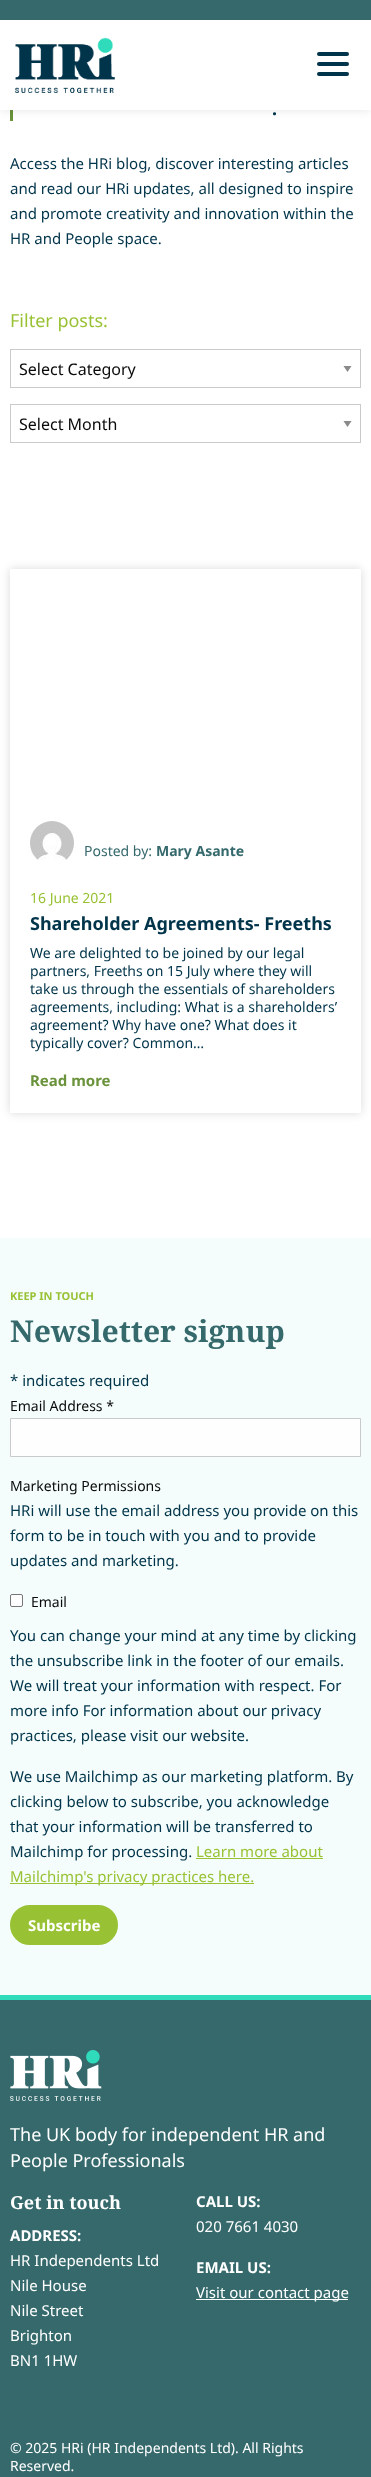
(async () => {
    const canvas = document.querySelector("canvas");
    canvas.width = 371;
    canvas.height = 2477;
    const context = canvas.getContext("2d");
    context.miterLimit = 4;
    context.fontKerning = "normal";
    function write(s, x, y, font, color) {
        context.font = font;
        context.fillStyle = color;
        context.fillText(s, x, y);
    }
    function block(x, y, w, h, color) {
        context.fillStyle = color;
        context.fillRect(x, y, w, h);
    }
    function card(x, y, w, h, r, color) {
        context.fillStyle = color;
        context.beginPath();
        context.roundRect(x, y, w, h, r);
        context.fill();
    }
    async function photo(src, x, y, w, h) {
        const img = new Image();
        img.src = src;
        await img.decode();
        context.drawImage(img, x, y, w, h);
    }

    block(0, 0, 371, 2477, "rgb(255, 255, 255)");
    block(10, 110, 3, 11, "rgb(106, 147, 60)");
    context.fillStyle = "rgba(0, 0, 0, 0.1)";
    context.filter = "blur(5px)";
    context.beginPath();
    context.rect(0, 0, 371, 110);
    context.fill();
    context.filter = "none";
    block(0, 20, 371, 90, "rgb(255, 255, 255)");
    block(0, 0, 371, 20, "rgb(53, 105, 108)");
    await photo("media/1.png", 15, 37, 100, 56);
    card(317, 62, 32, 4, 2, "rgb(0, 52, 74)");
    card(317, 52, 32, 4, 2, "rgb(0, 52, 74)");
    card(317, 72, 32, 4, 2, "rgb(0, 52, 74)");
    write(".", 272, 115, "bold 18px Noto Sans", "rgb(0, 52, 74)");
    write("Access the HRi blog, discover interesting articles", 10, 169, "15px Noto Sans", "rgb(0, 52, 74)");
    write("and read our HRi updates, all designed to inspire", 10, 194, "15px Noto Sans", "rgb(0, 52, 74)");
    write("and promote creativity and innovation within the", 10, 219, "15px Noto Sans", "rgb(0, 52, 74)");
    write("HR and People space.", 10, 244, "15px Noto Sans", "rgb(0, 52, 74)");
    write("Filter posts:", 10, 327, "18px Noto Sans", "rgb(152, 194, 51)");
    context.fillStyle = "rgb(138, 138, 138)";
    context.beginPath();
    context.moveTo(343.5, 366);
    context.lineTo(351.5, 366);
    context.lineTo(347.5, 372);
    context.closePath();
    context.fill();
    context.strokeStyle = "rgb(202, 202, 202)";
    context.strokeRect(10.5, 349.5, 350, 38);
    write("Select Category", 19, 375, "16px Noto Sans", "rgb(10, 10, 10)");
    context.fillStyle = "rgb(138, 138, 138)";
    context.beginPath();
    context.moveTo(343.5, 421);
    context.lineTo(351.5, 421);
    context.lineTo(347.5, 427);
    context.closePath();
    context.fill();
    context.strokeRect(10.5, 404.5, 350, 38);
    write("Select Month", 19, 430, "16px Noto Sans", "rgb(10, 10, 10)");
    context.save();
    context.beginPath();
    context.moveTo(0, 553);
    context.lineTo(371, 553);
    context.lineTo(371, 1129);
    context.lineTo(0, 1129);
    context.closePath();
    context.moveTo(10, 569);
    context.lineTo(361, 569);
    context.lineTo(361, 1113);
    context.lineTo(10, 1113);
    context.closePath();
    context.clip("evenodd");
    context.fillStyle = "rgba(0, 0, 0, 0.15)";
    context.filter = "blur(5px)";
    context.beginPath();
    context.rect(10, 569, 351, 544);
    context.fill();
    context.filter = "none";
    context.restore();
    context.fillStyle = "rgb(244, 253, 252)";
    context.beginPath();
    context.arc(52, 843, 22, 0, Math.PI * 2);
    context.fill();
    await photo("media/2.png", 30, 821, 44, 44);
    write("Posted by:", 84, 856, "14px Noto Sans", "rgb(53, 105, 108)");
    write("Mary Asante", 156, 856, "bold 14px Noto Sans", "rgb(53, 105, 108)");
    write("16 June 2021", 30, 903, "14px Noto Sans", "rgb(152, 194, 51)");
    write("Shareholder Agreements- Freeths", 30, 930, "bold 18px Noto Sans", "rgb(0, 52, 74)");
    write("We are delighted to be joined by our legal", 30, 958, "14px Noto Sans", "rgb(0, 52, 74)");
    write("partners, Freeths on 15 July where they will", 30, 976, "14px Noto Sans", "rgb(0, 52, 74)");
    write("take us through the essentials of shareholders", 30, 994, "14px Noto Sans", "rgb(0, 52, 74)");
    write("agreements, including: What is a shareholders’", 30, 1012, "14px Noto Sans", "rgb(0, 52, 74)");
    write("agreement? Why have one? What does it", 30, 1030, "14px Noto Sans", "rgb(0, 52, 74)");
    write("typically cover? Common…", 30, 1048, "14px Noto Sans", "rgb(0, 52, 74)");
    write("Read more", 30, 1086, "bold 15px Noto Sans", "rgb(106, 147, 60)");
    block(0, 1238, 371, 757, "rgb(244, 253, 252)");
    write("KEEP IN TOUCH", 10, 1300, "bold 11px Noto Sans", "rgb(152, 194, 51)");
    write("Newsletter signup", 10, 1342, "bold 30px Noto Serif", "rgb(53, 105, 108)");
    write("* indicates required", 10, 1386, "15px Noto Sans", "rgb(0, 52, 74)");
    write("Email Address *", 10, 1411, "14px Noto Sans", "rgb(10, 10, 10)");
    context.fillStyle = "rgb(254, 254, 254)";
    context.beginPath();
    context.rect(10.5, 1418.5, 350, 38);
    context.fill();
    context.stroke();
    write("Marketing Permissions", 10, 1491, "14px Noto Sans", "rgb(10, 10, 10)");
    write("HRi will use the email address you provide on this", 10, 1516, "15px Noto Sans", "rgb(0, 52, 74)");
    write("form to be in touch with you and to provide", 10, 1541, "15px Noto Sans", "rgb(0, 52, 74)");
    write("updates and marketing.", 10, 1566, "15px Noto Sans", "rgb(0, 52, 74)");
    context.fillStyle = "rgb(255, 255, 255)";
    context.beginPath();
    context.roundRect(10.5, 1594.5, 12, 12, 1.5);
    context.fill();
    context.strokeStyle = "rgb(118, 118, 118)";
    context.stroke();
    write("Email", 31, 1607, "14px Noto Sans", "rgb(10, 10, 10)");
    write("You can change your mind at any time by clicking", 10, 1641, "15px Noto Sans", "rgb(0, 52, 74)");
    write("the unsubscribe link in the footer of our emails.", 10, 1666, "15px Noto Sans", "rgb(0, 52, 74)");
    write("We will treat your information with respect. For", 10, 1691, "15px Noto Sans", "rgb(0, 52, 74)");
    write("more info For information about our privacy", 10, 1716, "15px Noto Sans", "rgb(0, 52, 74)");
    write("practices, please visit our website.", 10, 1741, "15px Noto Sans", "rgb(0, 52, 74)");
    write("We use Mailchimp as our marketing platform. By", 10, 1782, "15px Noto Sans", "rgb(0, 52, 74)");
    write("clicking below to subscribe, you acknowledge", 10, 1807, "15px Noto Sans", "rgb(0, 52, 74)");
    write("that your information will be transferred to", 10, 1832, "15px Noto Sans", "rgb(0, 52, 74)");
    write("Mailchimp for processing.", 10, 1857, "15px Noto Sans", "rgb(0, 52, 74)");
    write("Learn more about", 196, 1857, "15px Noto Sans", "rgb(152, 194, 51)");
    block(196, 1858, 127, 1, "rgb(152, 194, 51)");
    block(10, 1883, 244, 1, "rgb(152, 194, 51)");
    write("Mailchimp's privacy practices here.", 10, 1882, "15px Noto Sans", "rgb(152, 194, 51)");
    context.beginPath();
    context.roundRect(11.5, 1906.5, 105, 37, 18.5);
    context.fill();
    context.strokeStyle = "rgb(152, 194, 51)";
    context.lineWidth = 3;
    context.stroke();
    write("Subscribe", 28, 1931, "bold 15px Noto Sans", "rgb(255, 255, 255)");
    block(0, 2000, 371, 477, "rgb(53, 105, 108)");
    block(0, 1995, 371, 5, "rgb(48, 219, 188)");
    await photo("media/3.png", 10, 2050, 92, 51);
    write("The UK body for independent HR and", 10, 2141, "18px Noto Sans", "rgb(255, 255, 255)");
    write("People Professionals", 10, 2167, "18px Noto Sans", "rgb(255, 255, 255)");
    write("Get in touch", 10, 2209, "bold 18px Noto Serif", "rgb(255, 255, 255)");
    write("ADDRESS:", 10, 2241, "bold 15px Noto Sans", "rgb(255, 255, 255)");
    write("HR Independents Ltd", 10, 2266, "15px Noto Sans", "rgb(255, 255, 255)");
    write("Nile House", 10, 2291, "15px Noto Sans", "rgb(255, 255, 255)");
    write("Nile Street", 10, 2316, "15px Noto Sans", "rgb(255, 255, 255)");
    write("Brighton", 10, 2341, "15px Noto Sans", "rgb(255, 255, 255)");
    write("BN1 1HW", 10, 2366, "15px Noto Sans", "rgb(255, 255, 255)");
    write("CALL US:", 196, 2207, "bold 15px Noto Sans", "rgb(255, 255, 255)");
    write("020 7661 4030", 196, 2232, "15px Noto Sans", "rgb(255, 255, 255)");
    write("EMAIL US:", 196, 2273, "bold 15px Noto Sans", "rgb(255, 255, 255)");
    block(196, 2299, 152, 1, "rgb(255, 255, 255)");
    write("Visit our contact page", 196, 2298, "15px Noto Sans", "rgb(255, 255, 255)");
    write("© 2025 HRi (HR Independents Ltd). All Rights", 10, 2453, "14px Noto Sans", "rgb(255, 255, 255)");
    write("Reserved.", 10, 2471, "14px Noto Sans", "rgb(255, 255, 255)");
})();
